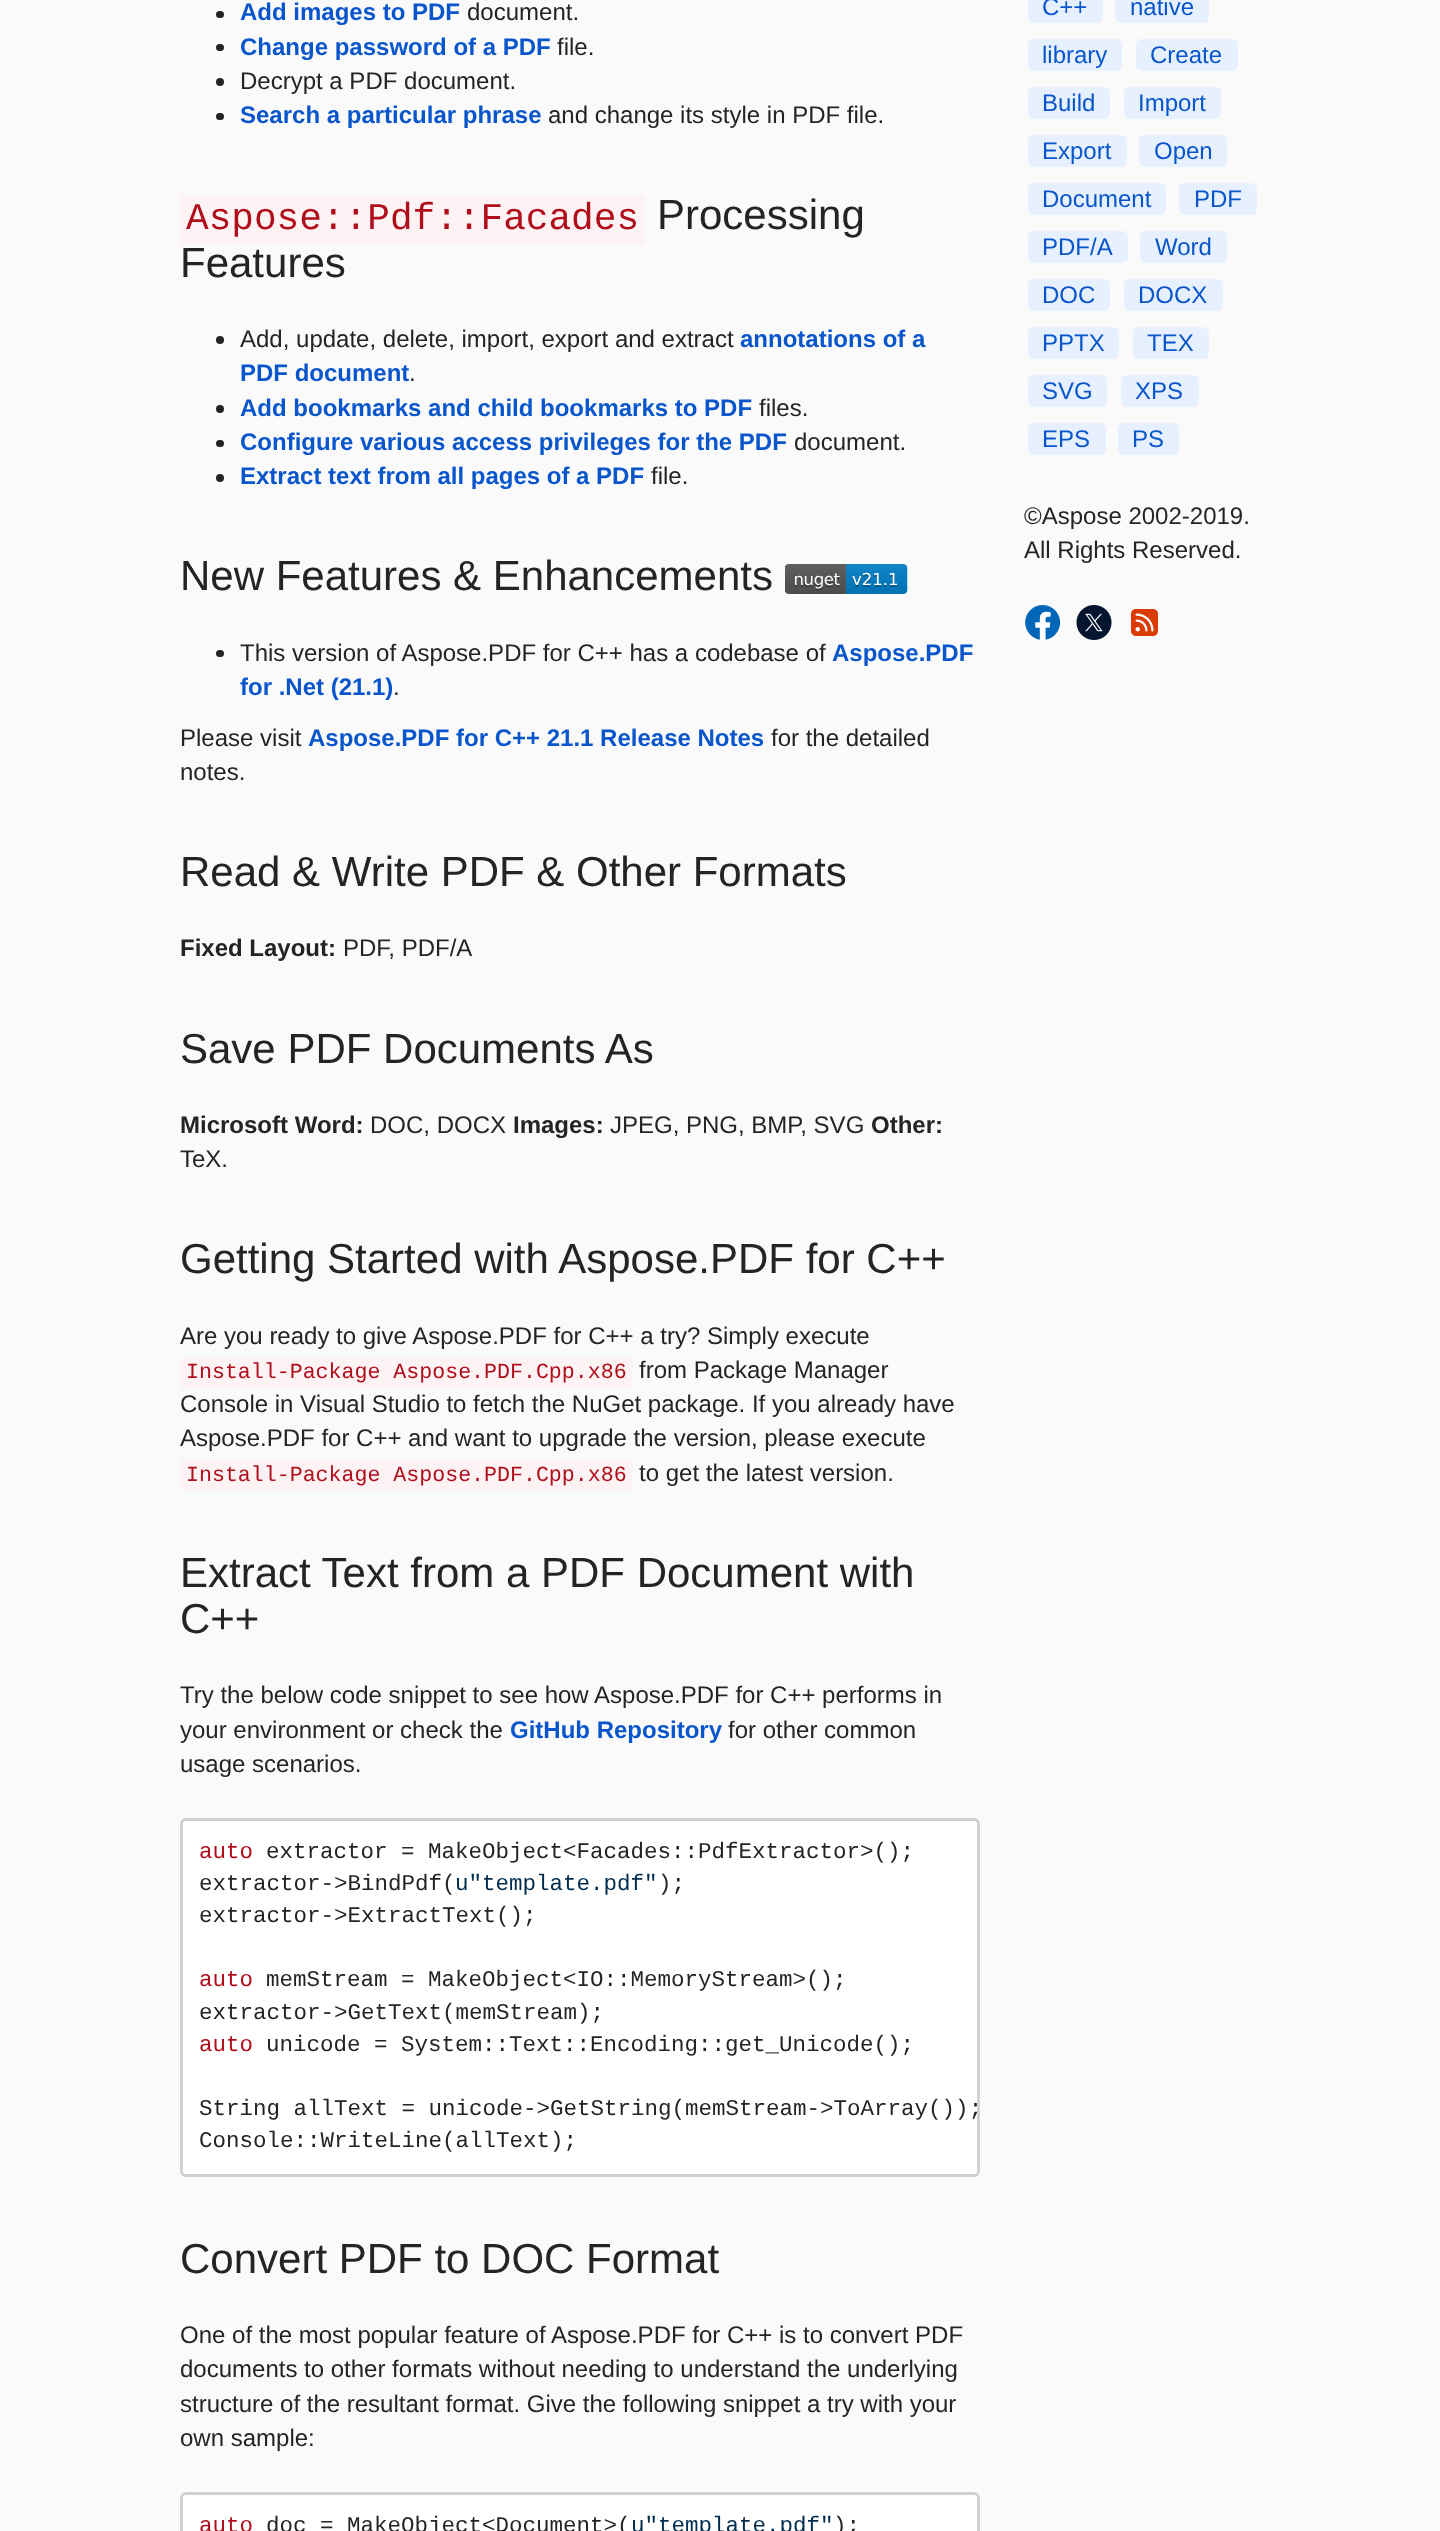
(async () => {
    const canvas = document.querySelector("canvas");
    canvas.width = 1440;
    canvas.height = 2531;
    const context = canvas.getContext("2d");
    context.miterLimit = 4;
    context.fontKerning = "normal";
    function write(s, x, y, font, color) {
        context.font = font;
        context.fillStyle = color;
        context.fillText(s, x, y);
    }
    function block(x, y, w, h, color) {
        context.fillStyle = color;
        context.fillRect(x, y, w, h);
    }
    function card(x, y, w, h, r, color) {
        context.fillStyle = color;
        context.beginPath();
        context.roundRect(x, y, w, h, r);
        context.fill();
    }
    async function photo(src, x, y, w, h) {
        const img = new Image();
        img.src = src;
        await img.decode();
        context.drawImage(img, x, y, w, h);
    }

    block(0, 0, 1440, 2531, "rgb(250, 250, 250)");
    card(216, 11, 8, 7, 3.5, "rgb(36, 36, 36)");
    write("Add images to PDF", 240, 20, "bold 24px Liberation Sans", "rgb(9, 86, 204)");
    write("document.", 467, 20, "24px Liberation Sans", "rgb(36, 36, 36)");
    card(216, 44, 8, 7, 3.5, "rgb(36, 36, 36)");
    write("Change password of a PDF", 240, 55, "bold 24px Liberation Sans", "rgb(9, 86, 204)");
    write("file.", 557, 55, "24px Liberation Sans", "rgb(36, 36, 36)");
    context.beginPath();
    context.arc(220, 82, 4, 0, Math.PI * 2);
    context.fill();
    write("Decrypt a PDF document.", 240, 89, "24px Liberation Sans", "rgb(36, 36, 36)");
    card(216, 113, 8, 7, 3.5, "rgb(36, 36, 36)");
    write("Search a particular phrase", 240, 123, "bold 24px Liberation Sans", "rgb(9, 86, 204)");
    write("and change its style in PDF file.", 548, 123, "24px Liberation Sans", "rgb(36, 36, 36)");
    block(180, 195, 465, 50, "rgb(253, 243, 244)");
    write("Aspose::Pdf::Facades", 186, 229, "37.75px Liberation Mono", "rgb(177, 14, 28)");
    write("Processing", 657, 229, "42px Liberation Sans", "rgb(36, 36, 36)");
    write("Features", 180, 277, "42px Liberation Sans", "rgb(36, 36, 36)");
    context.beginPath();
    context.arc(220, 340, 4, 0, Math.PI * 2);
    context.fill();
    write("Add, update, delete, import, export and extract", 240, 347, "24px Liberation Sans", "rgb(36, 36, 36)");
    write("annotations of a", 740, 347, "bold 24px Liberation Sans", "rgb(9, 86, 204)");
    write("PDF document", 240, 381, "bold 24px Liberation Sans", "rgb(9, 86, 204)");
    write(".", 409, 381, "24px Liberation Sans", "rgb(36, 36, 36)");
    context.beginPath();
    context.arc(220, 409, 4, 0, Math.PI * 2);
    context.fill();
    write("Add bookmarks and child bookmarks to PDF", 240, 416, "bold 24px Liberation Sans", "rgb(9, 86, 204)");
    write("files.", 759, 416, "24px Liberation Sans", "rgb(36, 36, 36)");
    card(216, 440, 8, 7, 3.5, "rgb(36, 36, 36)");
    write("Configure various access privileges for the PDF", 240, 450, "bold 24px Liberation Sans", "rgb(9, 86, 204)");
    write("document.", 794, 450, "24px Liberation Sans", "rgb(36, 36, 36)");
    context.beginPath();
    context.arc(220, 478, 4, 0, Math.PI * 2);
    context.fill();
    write("Extract text from all pages of a PDF", 240, 484, "bold 24px Liberation Sans", "rgb(9, 86, 204)");
    write("file.", 651, 484, "24px Liberation Sans", "rgb(36, 36, 36)");
    write("New Features & Enhancements", 180, 590, "42px Liberation Sans", "rgb(36, 36, 36)");
    await photo("media/1.png", 785, 564, 123, 30);
    card(216, 650, 8, 7, 3.5, "rgb(36, 36, 36)");
    write("This version of Aspose.PDF for C++ has a codebase of", 240, 661, "24px Liberation Sans", "rgb(36, 36, 36)");
    write("Aspose.PDF", 832, 661, "bold 24px Liberation Sans", "rgb(9, 86, 204)");
    write("for .Net (21.1)", 240, 695, "bold 24px Liberation Sans", "rgb(9, 86, 204)");
    write(".", 393, 695, "24px Liberation Sans", "rgb(36, 36, 36)");
    write("Please visit", 180, 746, "24px Liberation Sans", "rgb(36, 36, 36)");
    write("Aspose.PDF for C++ 21.1 Release Notes", 308, 746, "bold 24px Liberation Sans", "rgb(9, 86, 204)");
    write("for the detailed", 771, 746, "24px Liberation Sans", "rgb(36, 36, 36)");
    write("notes.", 180, 780, "24px Liberation Sans", "rgb(36, 36, 36)");
    write("Read & Write PDF & Other Formats", 180, 886, "42px Liberation Sans", "rgb(36, 36, 36)");
    write("Fixed Layout:", 180, 956, "bold 24px Liberation Sans", "rgb(36, 36, 36)");
    write("PDF, PDF/A", 343, 956, "24px Liberation Sans", "rgb(36, 36, 36)");
    write("Save PDF Documents As", 180, 1063, "42px Liberation Sans", "rgb(36, 36, 36)");
    write("Microsoft Word:", 180, 1133, "bold 24px Liberation Sans", "rgb(36, 36, 36)");
    write("DOC, DOCX", 370, 1133, "24px Liberation Sans", "rgb(36, 36, 36)");
    write("Images:", 513, 1133, "bold 24px Liberation Sans", "rgb(36, 36, 36)");
    write("JPEG, PNG, BMP, SVG", 610, 1133, "24px Liberation Sans", "rgb(36, 36, 36)");
    write("Other:", 871, 1133, "bold 24px Liberation Sans", "rgb(36, 36, 36)");
    write("TeX.", 180, 1167, "24px Liberation Sans", "rgb(36, 36, 36)");
    write("Getting Started with Aspose.PDF for C++", 180, 1273, "42px Liberation Sans", "rgb(36, 36, 36)");
    write("Are you ready to give Aspose.PDF for C++ a try? Simply execute", 180, 1344, "24px Liberation Sans", "rgb(36, 36, 36)");
    block(180, 1358, 453, 30, "rgb(253, 243, 244)");
    write("Install-Package Aspose.PDF.Cpp.x86", 186, 1378, "21.6px Liberation Mono", "rgb(177, 14, 28)");
    write("from Package Manager", 639, 1378, "24px Liberation Sans", "rgb(36, 36, 36)");
    write("Console in Visual Studio to fetch the NuGet package. If you already have", 180, 1412, "24px Liberation Sans", "rgb(36, 36, 36)");
    write("Aspose.PDF for C++ and want to upgrade the version, please execute", 180, 1446, "24px Liberation Sans", "rgb(36, 36, 36)");
    block(180, 1460, 453, 30, "rgb(253, 243, 244)");
    write("Install-Package Aspose.PDF.Cpp.x86", 186, 1481, "21.6px Liberation Mono", "rgb(177, 14, 28)");
    write("to get the latest version.", 639, 1481, "24px Liberation Sans", "rgb(36, 36, 36)");
    write("Extract Text from a PDF Document with", 180, 1587, "42px Liberation Sans", "rgb(36, 36, 36)");
    write("C++", 180, 1633, "42px Liberation Sans", "rgb(36, 36, 36)");
    write("Try the below code snippet to see how Aspose.PDF for C++ performs in", 180, 1703, "24px Liberation Sans", "rgb(36, 36, 36)");
    write("your environment or check the", 180, 1738, "24px Liberation Sans", "rgb(36, 36, 36)");
    write("GitHub Repository", 510, 1738, "bold 24px Liberation Sans", "rgb(9, 86, 204)");
    write("for other common", 728, 1738, "24px Liberation Sans", "rgb(36, 36, 36)");
    write("usage scenarios.", 180, 1772, "24px Liberation Sans", "rgb(36, 36, 36)");
    context.fillStyle = "rgb(255, 255, 255)";
    context.beginPath();
    context.roundRect(181.5, 1819.5, 797, 356, 4.5);
    context.fill();
    context.strokeStyle = "rgb(209, 209, 209)";
    context.lineWidth = 3;
    context.stroke();
    write("auto", 199, 1858, "22.5px Liberation Mono", "rgb(177, 14, 28)");
    write("extractor = MakeObject<Facades::PdfExtractor>();", 266, 1858, "22.5px Liberation Mono", "rgb(36, 36, 36)");
    write("extractor->BindPdf(", 199, 1890, "22.5px Liberation Mono", "rgb(36, 36, 36)");
    write("u\"template.pdf\"", 455, 1890, "22.5px Liberation Mono", "rgb(0, 44, 78)");
    write(");", 658, 1890, "22.5px Liberation Mono", "rgb(36, 36, 36)");
    write("extractor->ExtractText();", 199, 1922, "22.5px Liberation Mono", "rgb(36, 36, 36)");
    write("auto", 199, 1986, "22.5px Liberation Mono", "rgb(177, 14, 28)");
    write("memStream = MakeObject<IO::MemoryStream>();", 266, 1986, "22.5px Liberation Mono", "rgb(36, 36, 36)");
    write("extractor->GetText(memStream);", 199, 2019, "22.5px Liberation Mono", "rgb(36, 36, 36)");
    write("auto", 199, 2051, "22.5px Liberation Mono", "rgb(177, 14, 28)");
    write("unicode = System::Text::Encoding::get_Unicode();", 266, 2051, "22.5px Liberation Mono", "rgb(36, 36, 36)");
    write("String allText = unicode->GetString(memStream->ToArray());", 199, 2115, "22.5px Liberation Mono", "rgb(36, 36, 36)");
    write("Console::WriteLine(allText);", 199, 2147, "22.5px Liberation Mono", "rgb(36, 36, 36)");
    write("Convert PDF to DOC Format", 180, 2273, "42px Liberation Sans", "rgb(36, 36, 36)");
    write("One of the most popular feature of Aspose.PDF for C++ is to convert PDF", 180, 2343, "24px Liberation Sans", "rgb(36, 36, 36)");
    write("documents to other formats without needing to understand the underlying", 180, 2377, "24px Liberation Sans", "rgb(36, 36, 36)");
    write("structure of the resultant format. Give the following snippet a try with your", 180, 2412, "24px Liberation Sans", "rgb(36, 36, 36)");
    write("own sample:", 180, 2446, "24px Liberation Sans", "rgb(36, 36, 36)");
    context.fillStyle = "rgb(255, 255, 255)";
    context.beginPath();
    context.roundRect(181.5, 2493.5, 797, 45, 4.5);
    context.fill();
    context.stroke();
    write("auto", 199, 2532, "22.5px Liberation Mono", "rgb(177, 14, 28)");
    write("doc = MakeObject<Document>(", 266, 2532, "22.5px Liberation Mono", "rgb(36, 36, 36)");
    write("u\"template.pdf\"", 631, 2532, "22.5px Liberation Mono", "rgb(0, 44, 78)");
    write(");", 833, 2532, "22.5px Liberation Mono", "rgb(36, 36, 36)");
    card(1028, -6, 75, 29, 6, "rgb(231, 240, 255)");
    write("C++", 1042, 15, "24px Liberation Sans", "rgb(9, 86, 204)");
    card(1115, -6, 94, 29, 6, "rgb(231, 240, 255)");
    write("native", 1130, 15, "24px Liberation Sans", "rgb(9, 86, 204)");
    card(1028, 39, 94, 32, 6, "rgb(231, 240, 255)");
    write("library", 1042, 63, "24px Liberation Sans", "rgb(9, 86, 204)");
    card(1136, 39, 102, 32, 6, "rgb(231, 240, 255)");
    write("Create", 1150, 63, "24px Liberation Sans", "rgb(9, 86, 204)");
    card(1028, 87, 82, 32, 6, "rgb(231, 240, 255)");
    write("Build", 1042, 111, "24px Liberation Sans", "rgb(9, 86, 204)");
    card(1124, 87, 97, 32, 6, "rgb(231, 240, 255)");
    write("Import", 1138, 111, "24px Liberation Sans", "rgb(9, 86, 204)");
    card(1028, 135, 99, 32, 6, "rgb(231, 240, 255)");
    write("Export", 1042, 159, "24px Liberation Sans", "rgb(9, 86, 204)");
    card(1139, 135, 88, 32, 6, "rgb(231, 240, 255)");
    write("Open", 1154, 159, "24px Liberation Sans", "rgb(9, 86, 204)");
    card(1028, 183, 138, 32, 6, "rgb(231, 240, 255)");
    write("Document", 1042, 207, "24px Liberation Sans", "rgb(9, 86, 204)");
    card(1179, 183, 78, 32, 6, "rgb(231, 240, 255)");
    write("PDF", 1194, 207, "24px Liberation Sans", "rgb(9, 86, 204)");
    card(1028, 231, 100, 32, 6, "rgb(231, 240, 255)");
    write("PDF/A", 1042, 255, "24px Liberation Sans", "rgb(9, 86, 204)");
    card(1140, 231, 87, 32, 6, "rgb(231, 240, 255)");
    write("Word", 1155, 255, "24px Liberation Sans", "rgb(9, 86, 204)");
    card(1028, 279, 82, 32, 6, "rgb(231, 240, 255)");
    write("DOC", 1042, 303, "24px Liberation Sans", "rgb(9, 86, 204)");
    card(1124, 279, 99, 32, 6, "rgb(231, 240, 255)");
    write("DOCX", 1138, 303, "24px Liberation Sans", "rgb(9, 86, 204)");
    card(1028, 327, 91, 32, 6, "rgb(231, 240, 255)");
    write("PPTX", 1042, 351, "24px Liberation Sans", "rgb(9, 86, 204)");
    card(1133, 327, 76, 32, 6, "rgb(231, 240, 255)");
    write("TEX", 1147, 351, "24px Liberation Sans", "rgb(9, 86, 204)");
    card(1028, 375, 79, 32, 6, "rgb(231, 240, 255)");
    write("SVG", 1042, 399, "24px Liberation Sans", "rgb(9, 86, 204)");
    card(1121, 375, 78, 32, 6, "rgb(231, 240, 255)");
    write("XPS", 1135, 399, "24px Liberation Sans", "rgb(9, 86, 204)");
    card(1028, 423, 78, 32, 6, "rgb(231, 240, 255)");
    write("EPS", 1042, 447, "24px Liberation Sans", "rgb(9, 86, 204)");
    card(1118, 423, 61, 32, 6, "rgb(231, 240, 255)");
    write("PS", 1132, 447, "24px Liberation Sans", "rgb(9, 86, 204)");
    write("©Aspose 2002-2019.", 1024, 524, "24px Liberation Sans", "rgb(36, 36, 36)");
    write("All Rights Reserved.", 1024, 558, "24px Liberation Sans", "rgb(36, 36, 36)");
    await photo("media/2.png", 1025, 605, 36, 35);
    await photo("media/3.png", 1076, 605, 36, 35);
    await photo("media/4.png", 1131, 609, 27, 27);
})();
